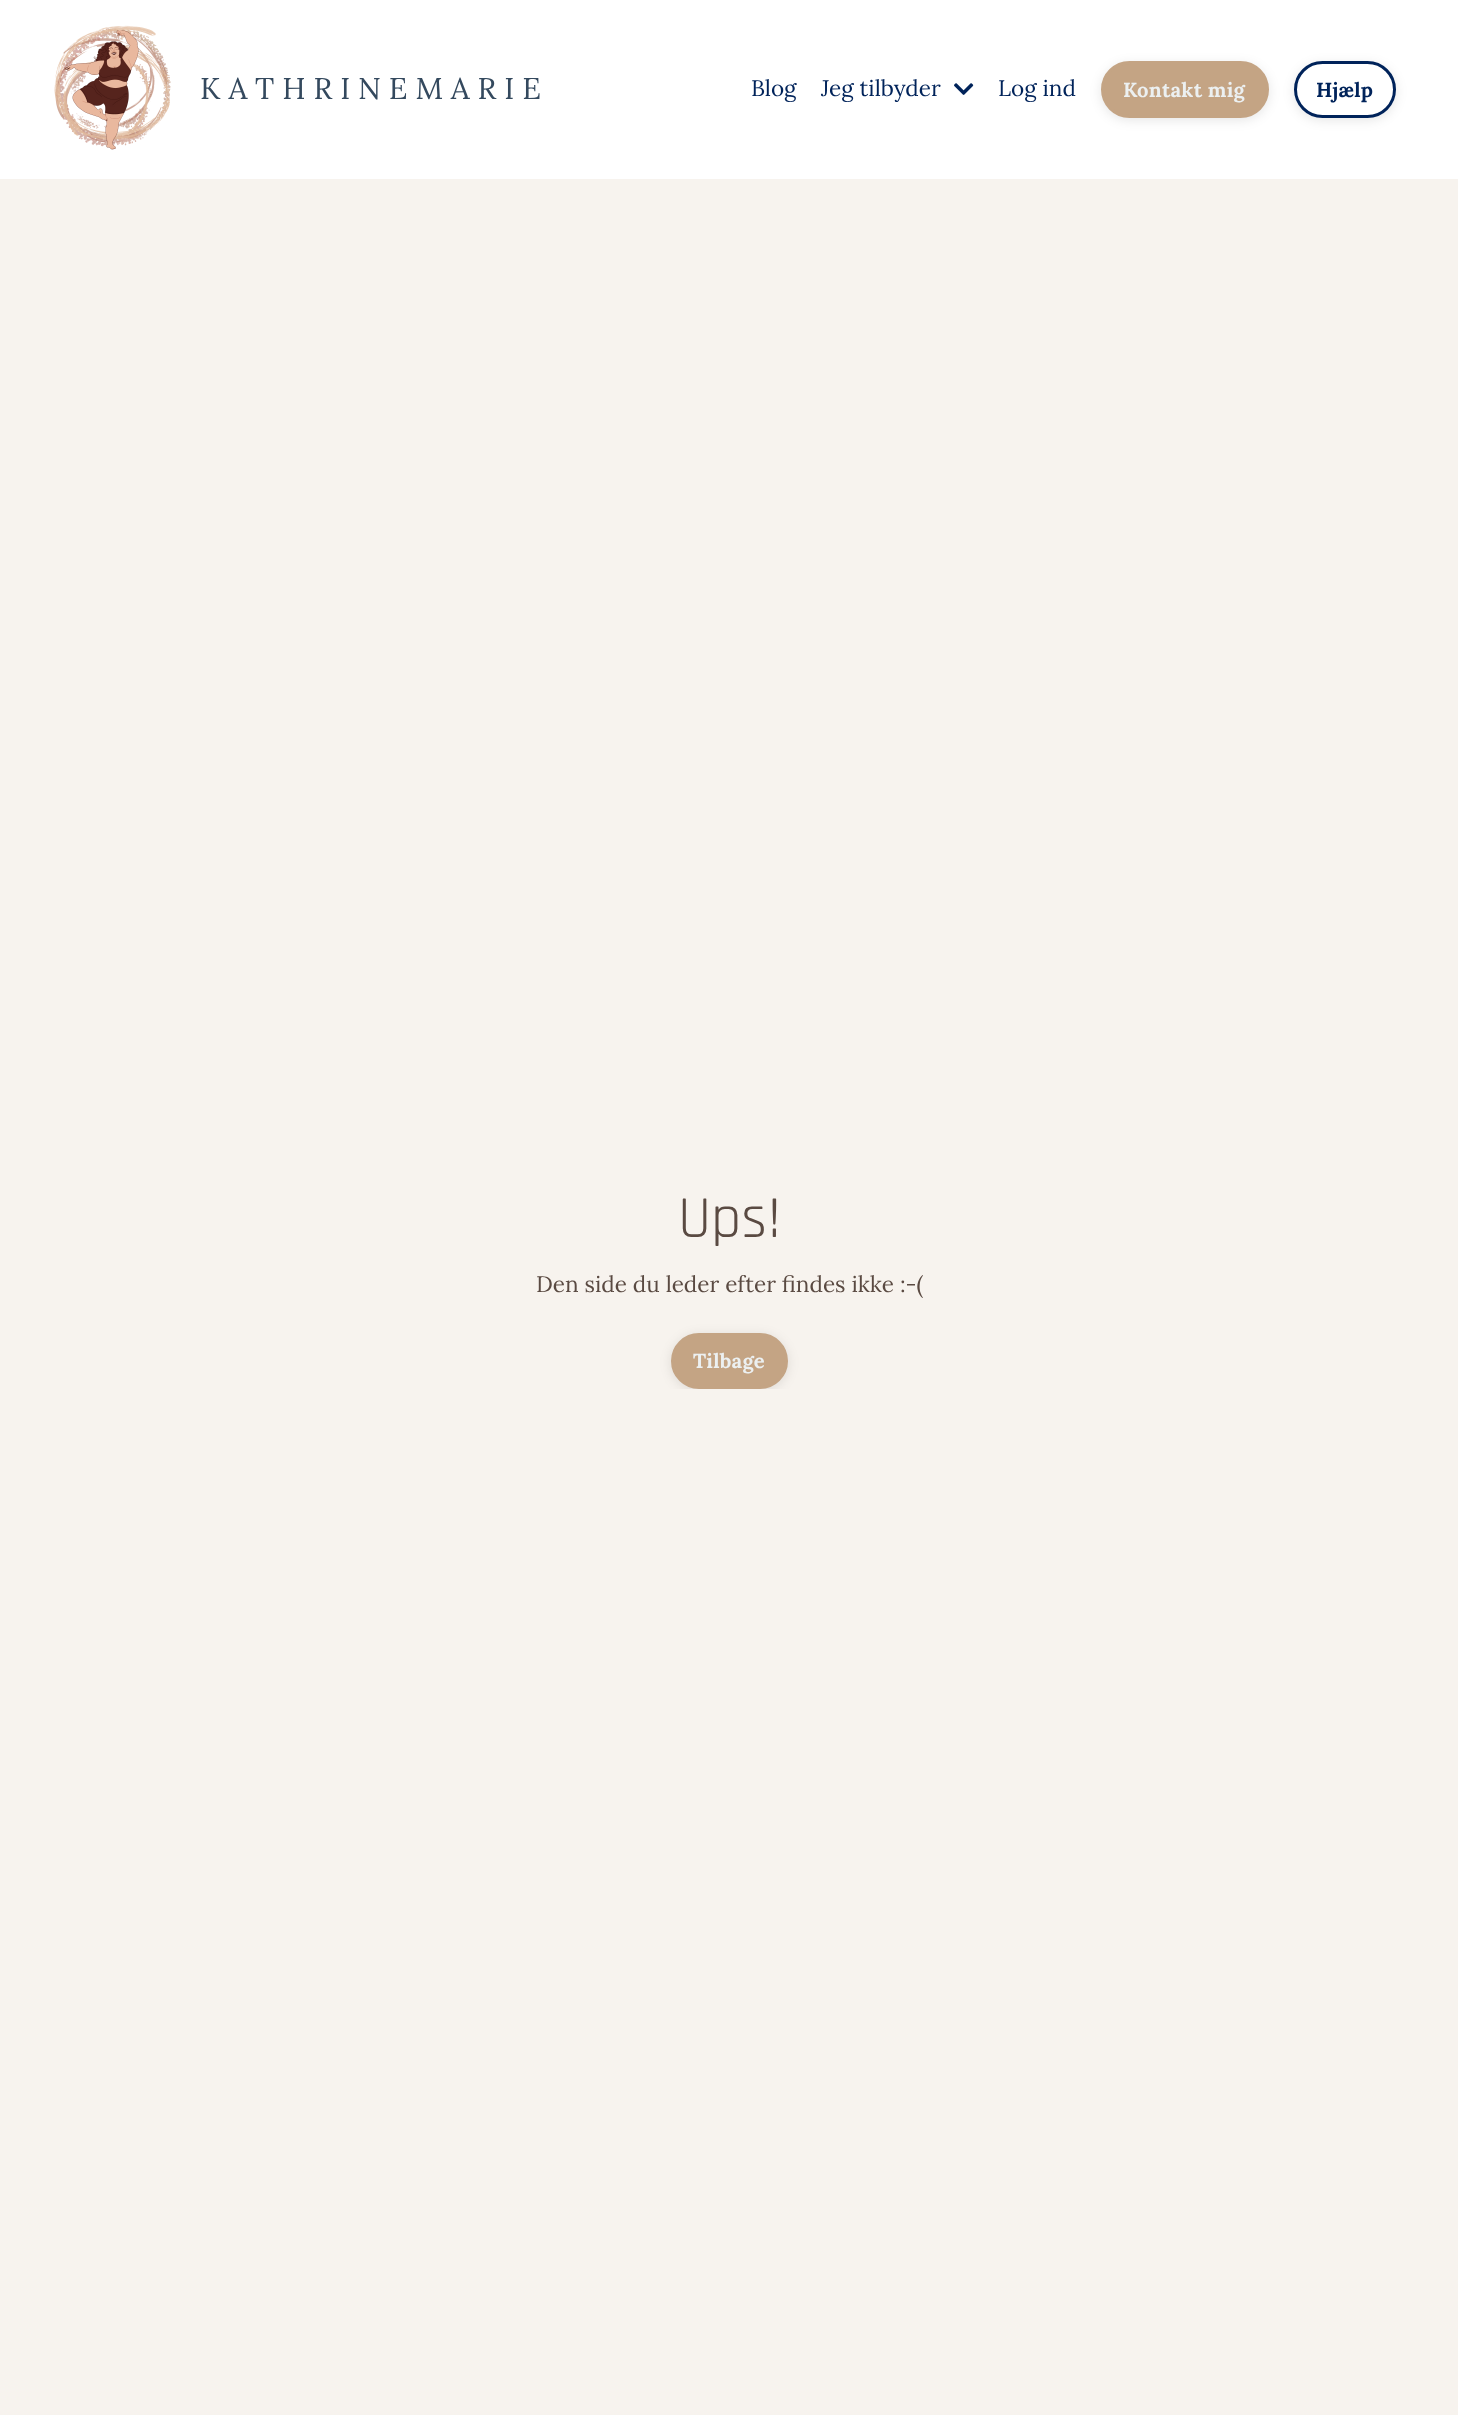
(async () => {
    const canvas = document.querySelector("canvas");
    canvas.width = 1458;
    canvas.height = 2415;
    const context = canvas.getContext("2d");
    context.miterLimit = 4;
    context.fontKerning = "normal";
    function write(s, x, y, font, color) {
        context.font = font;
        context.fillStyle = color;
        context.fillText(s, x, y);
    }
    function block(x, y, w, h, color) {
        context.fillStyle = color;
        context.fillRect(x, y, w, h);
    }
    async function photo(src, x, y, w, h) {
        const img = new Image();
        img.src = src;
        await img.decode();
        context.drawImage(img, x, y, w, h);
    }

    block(0, 0, 1458, 2415, "rgb(247, 243, 238)");
    block(0, 0, 1458, 179, "rgb(255, 255, 255)");
    await photo("media/1.png", 54, 25, 117, 125);
    write("K A T H R I N E M A R I E", 200, 99, "30px Lora", "rgb(52, 73, 94)");
    write("Blog", 751, 96, "22.5px Lora", "rgb(0, 35, 90)");
    write("Jeg tilbyder", 821, 96, "22.5px Lora", "rgb(0, 35, 90)");
    await photo("media/2.png", 954, 83, 20, 12);
    write("Log ind", 998, 96, "22.5px Lora", "rgb(0, 35, 90)");
    context.fillStyle = "rgba(0, 0, 0, 0.1)";
    context.filter = "blur(6px)";
    context.beginPath();
    context.roundRect(1101, 64, 168, 56, 28);
    context.fill();
    context.filter = "none";
    context.fillStyle = "rgb(196, 164, 132)";
    context.beginPath();
    context.roundRect(1102.5, 62.5, 165, 54, 27);
    context.fill();
    context.strokeStyle = "rgb(196, 164, 132)";
    context.lineWidth = 3;
    context.stroke();
    context.letterSpacing = "0.25px";
    write("Kontakt mig", 1123, 97, "bold 20.25px Lora", "rgb(236, 240, 241)");
    context.save();
    context.beginPath();
    context.moveTo(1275, 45);
    context.lineTo(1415, 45);
    context.lineTo(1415, 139);
    context.lineTo(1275, 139);
    context.closePath();
    context.moveTo(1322.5, 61);
    context.lineTo(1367.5, 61);
    context.bezierCurveTo(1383, 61, 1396, 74, 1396, 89.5);
    context.bezierCurveTo(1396, 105, 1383, 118, 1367.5, 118);
    context.lineTo(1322.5, 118);
    context.bezierCurveTo(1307, 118, 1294, 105, 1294, 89.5);
    context.bezierCurveTo(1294, 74, 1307, 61, 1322.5, 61);
    context.closePath();
    context.clip("evenodd");
    context.fillStyle = "rgba(0, 0, 0, 0.1)";
    context.filter = "blur(6px)";
    context.beginPath();
    context.roundRect(1294, 64, 102, 56, 28);
    context.fill();
    context.filter = "none";
    context.restore();
    context.beginPath();
    context.roundRect(1295.5, 62.5, 99, 54, 27);
    context.strokeStyle = "rgb(0, 35, 90)";
    context.stroke();
    write("Hjælp", 1316, 97, "bold 20.25px Lora", "rgb(0, 35, 90)");
    context.letterSpacing = "0px";
    write("Ups!", 678, 1237, "60px Rajdhani", "rgb(90, 74, 66)");
    write("Den side du leder efter findes ikke :-(", 536, 1292, "22.5px Lora", "rgb(90, 74, 66)");
    context.save();
    context.beginPath();
    context.roundRect(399, 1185, 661, 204, 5);
    context.clip();
    context.fillStyle = "rgba(0, 0, 0, 0.1)";
    context.filter = "blur(6px)";
    context.beginPath();
    context.roundRect(671, 1335, 117, 56, 28);
    context.fill();
    context.filter = "none";
    context.restore();
    context.fillStyle = "rgb(196, 164, 132)";
    context.beginPath();
    context.roundRect(672.5, 1334.5, 114, 53, 26.5);
    context.fill();
    context.strokeStyle = "rgb(196, 164, 132)";
    context.stroke();
    context.letterSpacing = "0.25px";
    write("Tilbage", 693, 1368, "bold 20.25px Lora", "rgb(236, 240, 241)");
})();
